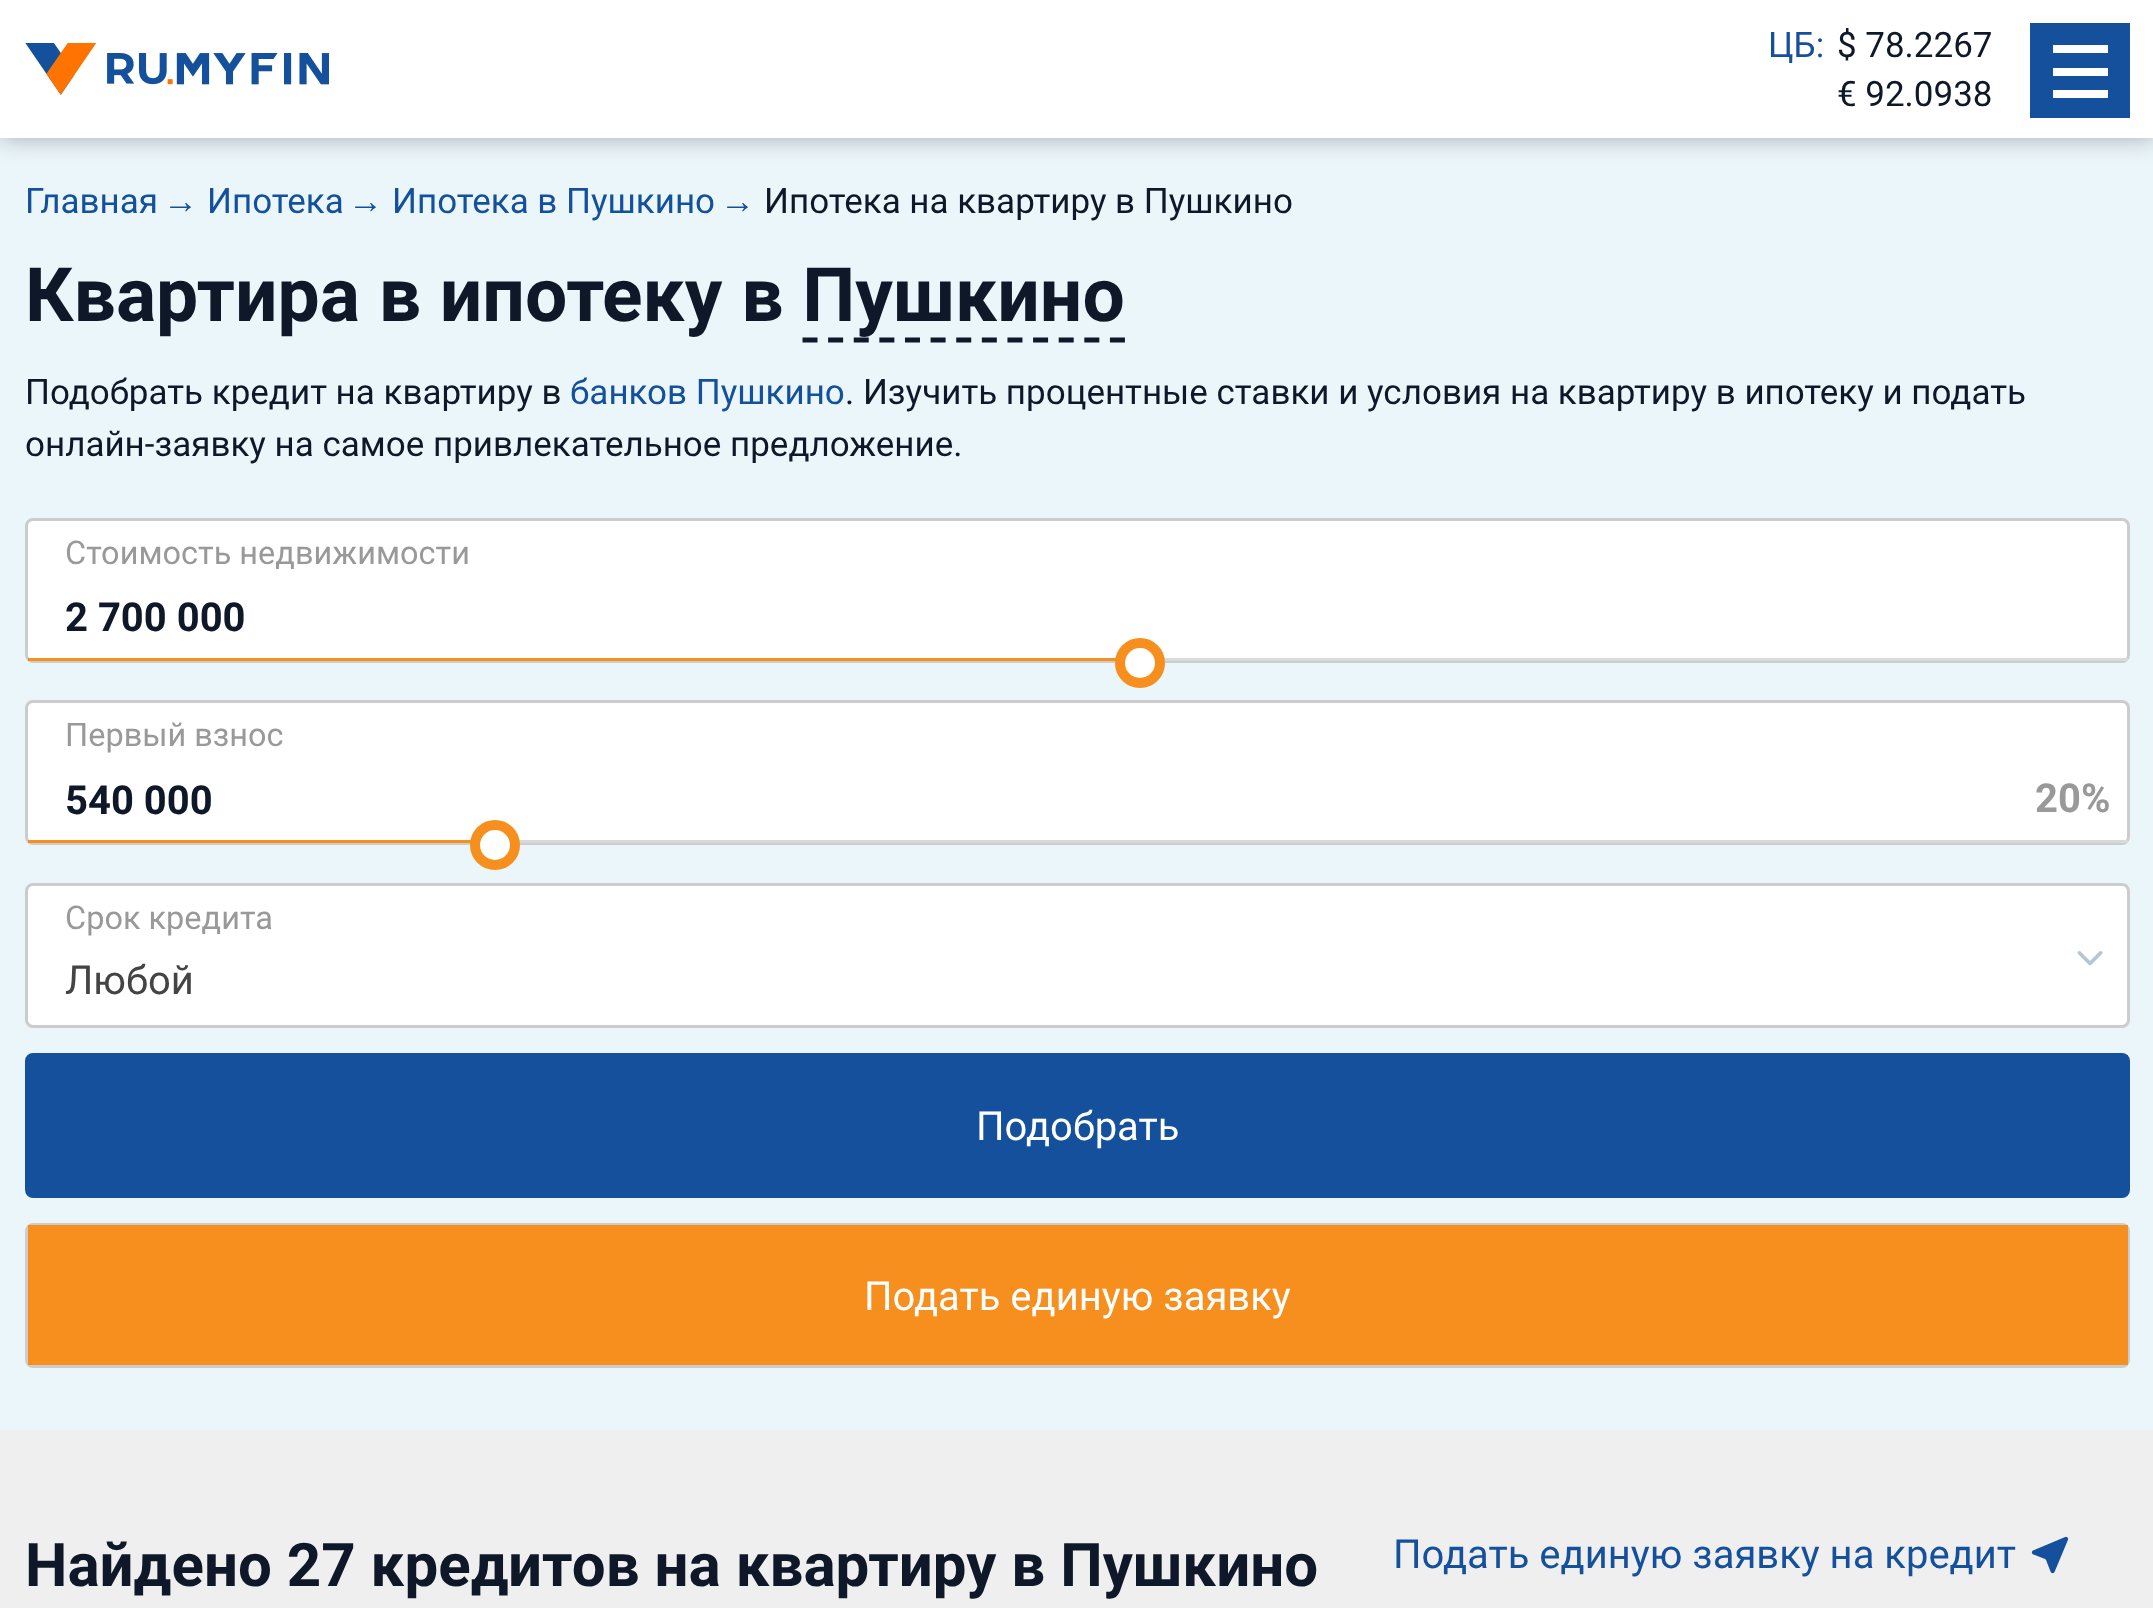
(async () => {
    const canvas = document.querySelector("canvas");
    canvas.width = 2153;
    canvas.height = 1608;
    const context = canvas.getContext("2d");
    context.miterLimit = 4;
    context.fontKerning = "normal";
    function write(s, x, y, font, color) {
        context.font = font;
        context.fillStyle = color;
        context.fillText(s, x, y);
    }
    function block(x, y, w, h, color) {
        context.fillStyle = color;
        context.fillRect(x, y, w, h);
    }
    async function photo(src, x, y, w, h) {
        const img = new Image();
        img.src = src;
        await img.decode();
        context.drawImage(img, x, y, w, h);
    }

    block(0, 0, 2153, 1608, "rgb(239, 239, 239)");
    block(0, 138, 2153, 1292, "rgb(235, 246, 251)");
    context.fillStyle = "rgba(0, 0, 0, 0.3)";
    context.filter = "blur(12.5px)";
    context.beginPath();
    context.rect(0, 0, 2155, 138);
    context.fill();
    context.filter = "none";
    block(0, 0, 2153, 138, "rgb(255, 255, 255)");
    await photo("media/1.png", 25, 43, 304, 52);
    write("ЦБ:", 1768, 57, "35px Roboto", "rgb(20, 80, 156)");
    write("$ 78.2267", 1837, 57, "35px Roboto", "rgb(14, 24, 41)");
    write("€ 92.0938", 1837, 106, "35px Roboto", "rgb(14, 24, 41)");
    block(2030, 23, 100, 95, "rgb(20, 80, 156)");
    block(2053, 45, 55, 8, "rgb(255, 255, 255)");
    block(2053, 68, 55, 8, "rgb(255, 255, 255)");
    block(2053, 90, 55, 8, "rgb(255, 255, 255)");
    write("Главная", 25, 213, "35px Roboto", "rgb(20, 80, 156)");
    write("→", 163, 213, "35px Liberation Sans", "rgb(20, 80, 156)");
    write("Ипотека", 207, 213, "35px Roboto", "rgb(20, 80, 156)");
    write("→", 348, 213, "35px Liberation Sans", "rgb(20, 80, 156)");
    write("Ипотека в Пушкино", 392, 213, "35px Roboto", "rgb(20, 80, 156)");
    write("→", 720, 213, "35px Liberation Sans", "rgb(20, 80, 156)");
    write("Ипотека на квартиру в Пушкино", 764, 213, "35px Roboto", "rgb(14, 24, 41)");
    write("Квартира в ипотеку в Пушкино", 25, 321, "bold 75px Roboto", "rgb(14, 24, 41)");
    context.beginPath();
    context.moveTo(802.5, 340);
    context.lineTo(1125, 340);
    context.strokeStyle = "rgb(14, 24, 41)";
    context.lineWidth = 5;
    context.setLineDash([15, 10.62]);
    context.stroke();
    write("Подобрать кредит на квартиру в", 25, 404, "35px Roboto", "rgb(14, 24, 41)");
    write("банков Пушкино", 570, 404, "35px Roboto", "rgb(20, 80, 156)");
    write(". Изучить процентные ставки и условия на квартиру в ипотеку и подать", 845, 404, "35px Roboto", "rgb(14, 24, 41)");
    write("онлайн-заявку на самое привлекательное предложение.", 25, 456, "35px Roboto", "rgb(14, 24, 41)");
    context.fillStyle = "rgb(255, 255, 255)";
    context.beginPath();
    context.roundRect(26.5, 519.5, 2102, 142, 6.5);
    context.fill();
    context.strokeStyle = "rgb(204, 204, 204)";
    context.lineWidth = 3;
    context.setLineDash([]);
    context.stroke();
    write("Cтоимость недвижимости", 65, 564, "32.5px Roboto", "rgb(153, 153, 153)");
    write("2 700 000", 65, 631, "bold 40px Roboto", "rgb(14, 24, 41)");
    block(1164, 658, 964, 3, "rgb(217, 217, 217)");
    block(28, 658, 1088, 3, "rgb(247, 143, 30)");
    context.fillStyle = "rgb(255, 255, 255)";
    context.beginPath();
    context.arc(1140, 663, 20, 0, Math.PI * 2);
    context.fill();
    context.strokeStyle = "rgb(247, 143, 30)";
    context.lineWidth = 10;
    context.stroke();
    context.beginPath();
    context.roundRect(26.5, 701.5, 2102, 142, 6.5);
    context.fill();
    context.strokeStyle = "rgb(204, 204, 204)";
    context.lineWidth = 3;
    context.stroke();
    write("Первый взнос", 65, 746, "32.5px Roboto", "rgb(153, 153, 153)");
    write("540 000", 65, 814, "bold 40px Roboto", "rgb(14, 24, 41)");
    write("20%", 2035, 812, "bold 40px Roboto", "rgb(153, 153, 153)");
    block(519, 840, 1609, 3, "rgb(217, 217, 217)");
    block(28, 840, 443, 3, "rgb(247, 143, 30)");
    context.fillStyle = "rgb(255, 255, 255)";
    context.beginPath();
    context.arc(495, 845, 20, 0, Math.PI * 2);
    context.fill();
    context.strokeStyle = "rgb(247, 143, 30)";
    context.lineWidth = 10;
    context.stroke();
    context.beginPath();
    context.roundRect(26.5, 884.5, 2102, 142, 6.5);
    context.fill();
    context.strokeStyle = "rgb(204, 204, 204)";
    context.lineWidth = 3;
    context.stroke();
    write("Срок кредита", 65, 929, "32.5px Roboto", "rgb(153, 153, 153)");
    await photo("media/2.png", 2077, 951, 26, 15);
    write("Любой", 65, 994, "40px Roboto", "rgb(68, 68, 68)");
    context.beginPath();
    context.roundRect(26.5, 1054.5, 2102, 142, 6.5);
    context.strokeStyle = "rgb(20, 80, 156)";
    context.stroke();
    block(28, 1055, 2100, 140, "rgb(20, 80, 156)");
    write("Подобрать", 976, 1140, "40px Roboto", "rgb(255, 255, 255)");
    context.beginPath();
    context.roundRect(26.5, 1224.5, 2102, 142, 6.5);
    context.strokeStyle = "rgb(204, 204, 204)";
    context.stroke();
    block(28, 1225, 2100, 140, "rgb(247, 143, 30)");
    write("Подать единую заявку", 864, 1310, "40px Roboto", "rgb(255, 255, 255)");
    write("Найдено 27 кредитов на квартиру в Пушкино", 25, 1586, "bold 60px Roboto", "rgb(14, 24, 41)");
    write("Подать единую заявку на кредит", 1393, 1568, "40px Roboto", "rgb(20, 80, 156)");
    await photo("media/3.png", 2031, 1536, 38, 38);
})();
